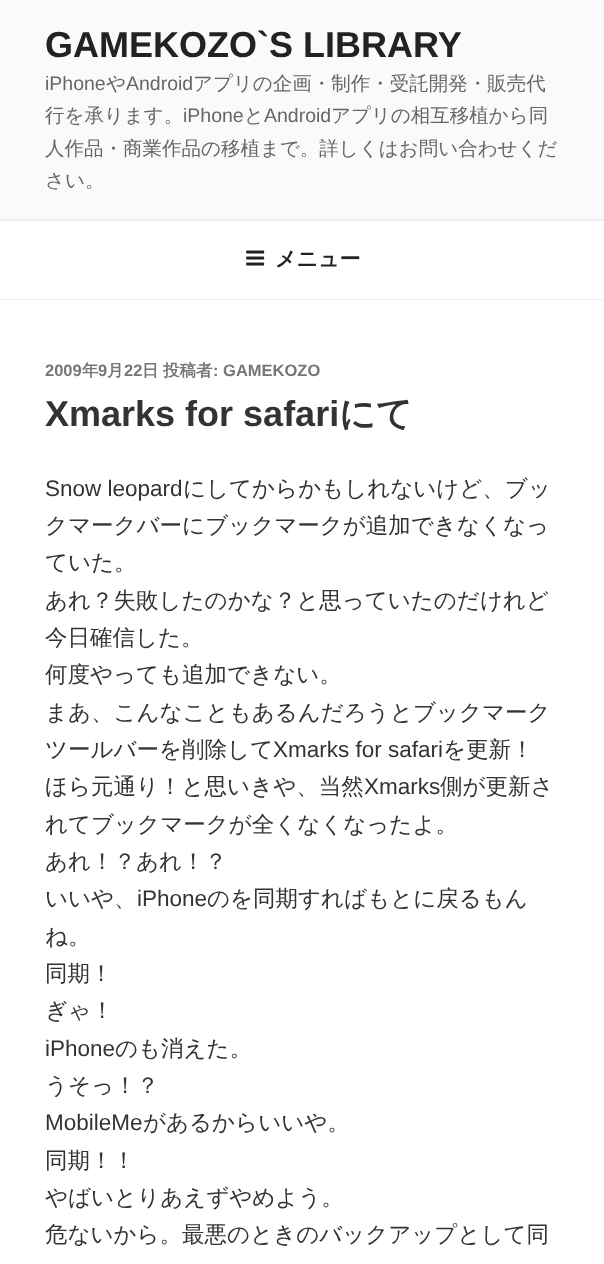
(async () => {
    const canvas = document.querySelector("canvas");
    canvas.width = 604;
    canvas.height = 1264;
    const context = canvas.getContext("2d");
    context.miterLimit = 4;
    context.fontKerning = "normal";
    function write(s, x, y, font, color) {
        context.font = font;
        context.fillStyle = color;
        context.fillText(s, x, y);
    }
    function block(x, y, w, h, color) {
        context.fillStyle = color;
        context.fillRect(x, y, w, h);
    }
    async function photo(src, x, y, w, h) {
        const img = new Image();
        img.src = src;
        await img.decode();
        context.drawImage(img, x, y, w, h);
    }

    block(0, 0, 604, 1264, "rgb(250, 250, 250)");
    write("GAMEKOZO`S LIBRARY", 45, 57, "bold 36px Liberation Sans", "rgb(34, 34, 34)");
    write("iPhone", 45, 90, "19.5px Liberation Sans", "rgb(102, 102, 102)");
    write("や", 106, 90, "500 19.5px WenQuanYi Zen Hei", "rgb(102, 102, 102)");
    write("Android", 126, 90, "19.5px Liberation Sans", "rgb(102, 102, 102)");
    write("アプリの企画・制作・受託開発・販売代", 193, 90, "500 19.5px WenQuanYi Zen Hei", "rgb(102, 102, 102)");
    write("行を承ります。", 45, 122, "500 19.5px WenQuanYi Zen Hei", "rgb(102, 102, 102)");
    write("iPhone", 183, 122, "19.5px Liberation Sans", "rgb(102, 102, 102)");
    write("と", 244, 122, "500 19.5px WenQuanYi Zen Hei", "rgb(102, 102, 102)");
    write("Android", 264, 122, "19.5px Liberation Sans", "rgb(102, 102, 102)");
    write("アプリの相互移植から同", 331, 122, "500 19.5px WenQuanYi Zen Hei", "rgb(102, 102, 102)");
    write("人作品・商業作品の移植まで。詳しくはお問い合わせくだ", 45, 155, "500 19.5px WenQuanYi Zen Hei", "rgb(102, 102, 102)");
    write("さい。", 45, 187, "500 19.5px WenQuanYi Zen Hei", "rgb(102, 102, 102)");
    block(0, 221, 604, 78, "rgb(255, 255, 255)");
    block(0, 219, 604, 2, "rgb(238, 238, 238)");
    block(0, 299, 604, 1, "rgb(238, 238, 238)");
    await photo("media/1.png", 246, 250, 19, 16);
    write("メニュー", 275, 266, "bold 21px WenQuanYi Zen Hei", "rgb(34, 34, 34)");
    block(0, 300, 604, 964, "rgb(255, 255, 255)");
    write("2009", 45, 376, "bold 16.5px Liberation Sans", "rgb(118, 118, 118)");
    write("年", 82, 376, "bold 16.5px WenQuanYi Zen Hei", "rgb(118, 118, 118)");
    write("9", 98, 376, "bold 16.5px Liberation Sans", "rgb(118, 118, 118)");
    write("月", 107, 376, "bold 16.5px WenQuanYi Zen Hei", "rgb(118, 118, 118)");
    write("22", 124, 376, "bold 16.5px Liberation Sans", "rgb(118, 118, 118)");
    write("日", 142, 376, "bold 16.5px WenQuanYi Zen Hei", "rgb(118, 118, 118)");
    write("投稿者", 163, 376, "bold 16.5px WenQuanYi Zen Hei", "rgb(118, 118, 118)");
    write(": GAMEKOZO", 213, 376, "bold 16.5px Liberation Sans", "rgb(118, 118, 118)");
    write("Xmarks for safari", 45, 426, "bold 36px Liberation Sans", "rgb(51, 51, 51)");
    write("にて", 339, 426, "bold 36px WenQuanYi Zen Hei", "rgb(51, 51, 51)");
    write("Snow leopard", 45, 496, "22.5px Liberation Sans", "rgb(51, 51, 51)");
    write("にしてからかもしれないけど、ブッ", 183, 496, "500 22.5px WenQuanYi Zen Hei", "rgb(51, 51, 51)");
    write("クマークバーにブックマークが追加できなくなっ", 45, 533, "500 22.5px WenQuanYi Zen Hei", "rgb(51, 51, 51)");
    write("ていた。", 45, 570, "500 22.5px WenQuanYi Zen Hei", "rgb(51, 51, 51)");
    write("あれ？失敗したのかな？と思っていたのだけれど", 45, 608, "500 22.5px WenQuanYi Zen Hei", "rgb(51, 51, 51)");
    write("今日確信した。", 45, 645, "500 22.5px WenQuanYi Zen Hei", "rgb(51, 51, 51)");
    write("何度やっても追加できない。", 45, 682, "500 22.5px WenQuanYi Zen Hei", "rgb(51, 51, 51)");
    write("まあ、こんなこともあるんだろうとブックマーク", 45, 720, "500 22.5px WenQuanYi Zen Hei", "rgb(51, 51, 51)");
    write("ツールバーを削除して", 45, 757, "500 22.5px WenQuanYi Zen Hei", "rgb(51, 51, 51)");
    write("Xmarks for safari", 273, 757, "22.5px Liberation Sans", "rgb(51, 51, 51)");
    write("を更新！", 443, 757, "500 22.5px WenQuanYi Zen Hei", "rgb(51, 51, 51)");
    write("ほら元通り！と思いきや、当然", 45, 794, "500 22.5px WenQuanYi Zen Hei", "rgb(51, 51, 51)");
    write("Xmarks", 364, 794, "22.5px Liberation Sans", "rgb(51, 51, 51)");
    write("側が更新さ", 440, 794, "500 22.5px WenQuanYi Zen Hei", "rgb(51, 51, 51)");
    write("れてブックマークが全くなくなったよ。", 45, 832, "500 22.5px WenQuanYi Zen Hei", "rgb(51, 51, 51)");
    write("あれ！？あれ！？", 45, 869, "500 22.5px WenQuanYi Zen Hei", "rgb(51, 51, 51)");
    write("いいや、", 45, 906, "500 22.5px WenQuanYi Zen Hei", "rgb(51, 51, 51)");
    write("iPhone", 137, 906, "22.5px Liberation Sans", "rgb(51, 51, 51)");
    write("のを同期すればもとに戻るもん", 207, 906, "500 22.5px WenQuanYi Zen Hei", "rgb(51, 51, 51)");
    write("ね。", 45, 944, "500 22.5px WenQuanYi Zen Hei", "rgb(51, 51, 51)");
    write("同期！", 45, 981, "500 22.5px WenQuanYi Zen Hei", "rgb(51, 51, 51)");
    write("ぎゃ！", 45, 1018, "500 22.5px WenQuanYi Zen Hei", "rgb(51, 51, 51)");
    write("iPhone", 45, 1056, "22.5px Liberation Sans", "rgb(51, 51, 51)");
    write("のも消えた。", 115, 1056, "500 22.5px WenQuanYi Zen Hei", "rgb(51, 51, 51)");
    write("うそっ！？", 45, 1093, "500 22.5px WenQuanYi Zen Hei", "rgb(51, 51, 51)");
    write("MobileMe", 45, 1130, "22.5px Liberation Sans", "rgb(51, 51, 51)");
    write("があるからいいや。", 143, 1130, "500 22.5px WenQuanYi Zen Hei", "rgb(51, 51, 51)");
    write("同期！！", 45, 1168, "500 22.5px WenQuanYi Zen Hei", "rgb(51, 51, 51)");
    write("やばいとりあえずやめよう。", 45, 1205, "500 22.5px WenQuanYi Zen Hei", "rgb(51, 51, 51)");
    write("危ないから。最悪のときのバックアップとして同", 45, 1242, "500 22.5px WenQuanYi Zen Hei", "rgb(51, 51, 51)");
})();
